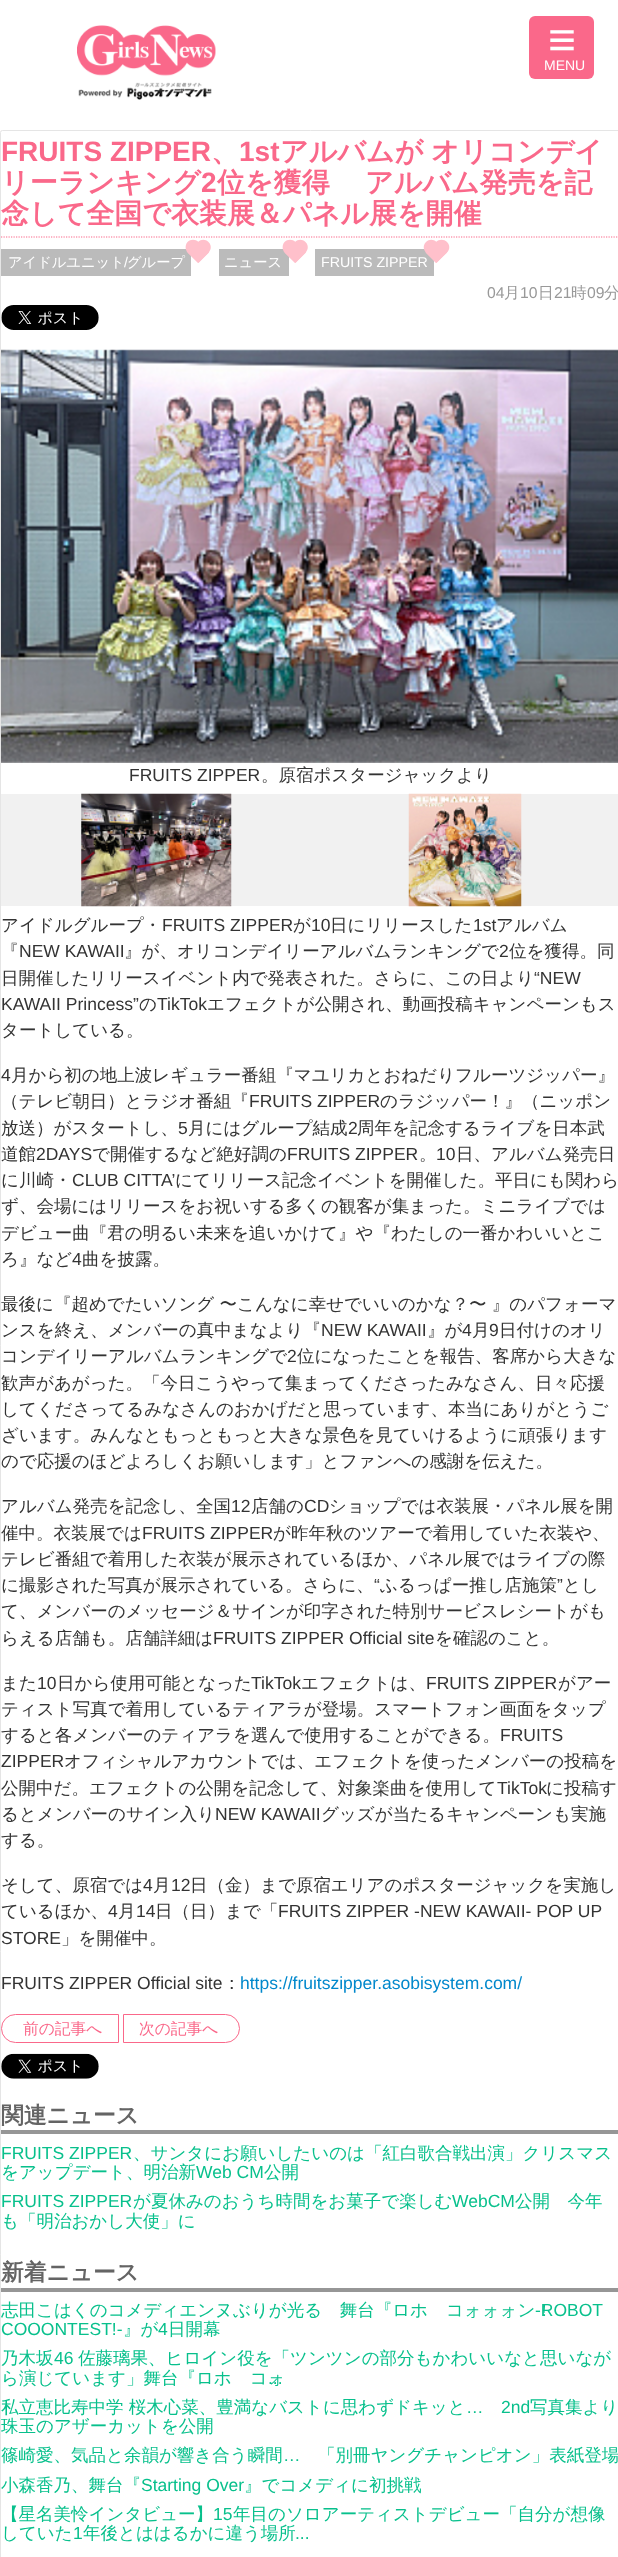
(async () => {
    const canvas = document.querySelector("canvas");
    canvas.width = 618;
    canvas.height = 2557;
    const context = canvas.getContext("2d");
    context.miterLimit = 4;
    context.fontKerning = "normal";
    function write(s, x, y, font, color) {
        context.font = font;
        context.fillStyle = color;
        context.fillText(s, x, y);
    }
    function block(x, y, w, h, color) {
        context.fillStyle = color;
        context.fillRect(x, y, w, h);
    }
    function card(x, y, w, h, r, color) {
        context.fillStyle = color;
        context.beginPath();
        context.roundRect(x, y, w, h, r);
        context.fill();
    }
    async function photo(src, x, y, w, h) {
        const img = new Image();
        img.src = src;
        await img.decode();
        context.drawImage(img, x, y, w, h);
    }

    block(0, 0, 618, 2557, "rgb(255, 255, 255)");
    await photo("media/1.png", 77, 25, 139, 75);
    card(529, 16, 65, 63, 6, "rgb(250, 104, 138)");
    write("≡", 548, 56, "48px Liberation Sans", "rgb(255, 255, 255)");
    write("MENU", 544, 70, "14px Liberation Sans", "rgb(255, 255, 255)");
    block(0, 130, 3, 3, "rgb(255, 251, 251)");
    context.fillStyle = "rgb(255, 255, 255)";
    context.beginPath();
    context.roundRect(0.5, 130.5, 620, 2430, 2);
    context.fill();
    context.strokeStyle = "rgb(229, 229, 229)";
    context.stroke();
    context.beginPath();
    context.moveTo(1, 237);
    context.lineTo(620, 237);
    context.strokeStyle = "rgb(250, 104, 138)";
    context.lineWidth = 1.2;
    context.setLineDash([1.25, 1.25]);
    context.stroke();
    write("FRUITS ZIPPER", 1, 161, "bold 28px Liberation Sans", "rgb(250, 104, 138)");
    write("、", 211, 161, "bold 28px WenQuanYi Zen Hei", "rgb(250, 104, 138)");
    write("1st", 239, 161, "bold 28px Liberation Sans", "rgb(250, 104, 138)");
    write("アルバムが", 280, 161, "bold 28px WenQuanYi Zen Hei", "rgb(250, 104, 138)");
    write("オリコンデイ", 431, 161, "bold 28px WenQuanYi Zen Hei", "rgb(250, 104, 138)");
    write("リーランキング", 1, 192, "bold 28px WenQuanYi Zen Hei", "rgb(250, 104, 138)");
    write("2", 201, 192, "bold 28px Liberation Sans", "rgb(250, 104, 138)");
    context.wordSpacing = "-1px";
    write("位を獲得　 アルバム発売を記", 217, 192, "bold 28px WenQuanYi Zen Hei", "rgb(250, 104, 138)");
    context.wordSpacing = "0px";
    write("念して全国で衣装展＆パネル展を開催", 1, 223, "bold 28px WenQuanYi Zen Hei", "rgb(250, 104, 138)");
    block(1, 249, 190, 27, "rgb(187, 187, 187)");
    write("アイドルユニット", 8, 267, "500 14.25px WenQuanYi Zen Hei", "rgb(255, 255, 255)");
    write("/", 124, 267, "14.25px Liberation Sans", "rgb(255, 255, 255)");
    write("グループ", 127, 267, "500 14.25px WenQuanYi Zen Hei", "rgb(255, 255, 255)");
    context.fillStyle = "rgb(255, 192, 203)";
    context.beginPath();
    context.moveTo(187.5, 242);
    context.bezierCurveTo(190.5, 239, 195.5, 239, 198.5, 242);
    context.lineTo(209, 252.5);
    context.lineTo(198.5, 263);
    context.lineTo(187.5, 252.5);
    context.bezierCurveTo(185, 249.5, 185, 245, 187.5, 242);
    context.closePath();
    context.fill();
    context.beginPath();
    context.moveTo(208.5, 242);
    context.bezierCurveTo(211.5, 245, 211.5, 249.5, 208.5, 252.5);
    context.lineTo(198, 263);
    context.lineTo(187.5, 252.5);
    context.lineTo(198, 242);
    context.bezierCurveTo(201, 239, 205.5, 239, 208.5, 242);
    context.closePath();
    context.fill();
    block(219, 249, 70, 27, "rgb(187, 187, 187)");
    write("ニュース", 224, 267, "500 14.25px WenQuanYi Zen Hei", "rgb(255, 255, 255)");
    context.fillStyle = "rgb(255, 192, 203)";
    context.beginPath();
    context.moveTo(284.5, 242);
    context.bezierCurveTo(287.5, 239, 292.5, 239, 295.5, 242);
    context.lineTo(306, 252.5);
    context.lineTo(295.5, 263);
    context.lineTo(284.5, 252.5);
    context.bezierCurveTo(282, 249.5, 282, 245, 284.5, 242);
    context.closePath();
    context.fill();
    context.beginPath();
    context.moveTo(305.5, 242);
    context.bezierCurveTo(308.5, 245, 308.5, 249.5, 305.5, 252.5);
    context.lineTo(295, 263);
    context.lineTo(284.5, 252.5);
    context.lineTo(295, 242);
    context.bezierCurveTo(298, 239, 302.5, 239, 305.5, 242);
    context.closePath();
    context.fill();
    block(315, 249, 119, 27, "rgb(187, 187, 187)");
    write("FRUITS ZIPPER", 321, 267, "14.25px Liberation Sans", "rgb(255, 255, 255)");
    context.fillStyle = "rgb(255, 192, 203)";
    context.beginPath();
    context.moveTo(426, 242);
    context.bezierCurveTo(429, 239, 433.5, 239, 436.5, 242);
    context.lineTo(447, 252.5);
    context.lineTo(436.5, 263);
    context.lineTo(426, 252.5);
    context.bezierCurveTo(423, 249.5, 423, 245, 426, 242);
    context.closePath();
    context.fill();
    context.beginPath();
    context.moveTo(447, 242);
    context.bezierCurveTo(450, 245, 450, 249.5, 447, 252.5);
    context.lineTo(436, 263);
    context.lineTo(425.5, 252.5);
    context.lineTo(436, 242);
    context.bezierCurveTo(439, 239, 444, 239, 447, 242);
    context.closePath();
    context.fill();
    write("04", 487, 298, "15.75px Liberation Sans", "rgb(153, 153, 153)");
    write("月", 504, 298, "500 15.75px WenQuanYi Zen Hei", "rgb(153, 153, 153)");
    write("10", 520, 298, "15.75px Liberation Sans", "rgb(153, 153, 153)");
    write("日", 538, 298, "500 15.75px WenQuanYi Zen Hei", "rgb(153, 153, 153)");
    write("21", 554, 298, "15.75px Liberation Sans", "rgb(153, 153, 153)");
    write("時", 571, 298, "500 15.75px WenQuanYi Zen Hei", "rgb(153, 153, 153)");
    write("09", 587, 298, "15.75px Liberation Sans", "rgb(153, 153, 153)");
    write("分", 604, 298, "500 15.75px WenQuanYi Zen Hei", "rgb(153, 153, 153)");
    await photo("media/2.png", 1, 305, 98, 25);
    await photo("media/3.png", 1, 349, 617, 414);
    write("FRUITS ZIPPER", 129, 781, "17.5px Liberation Sans", "rgb(51, 51, 51)");
    write("。原宿ポスタージャックより", 261, 781, "500 17.5px WenQuanYi Zen Hei", "rgb(51, 51, 51)");
    block(1, 794, 617, 112, "rgb(241, 241, 241)");
    await photo("media/4.png", 81, 793, 151, 114);
    await photo("media/5.png", 408, 793, 114, 114);
    write("アイドルグループ・", 1, 931, "500 17.5px WenQuanYi Zen Hei", "rgb(51, 51, 51)");
    write("FRUITS ZIPPER", 162, 931, "17.5px Liberation Sans", "rgb(51, 51, 51)");
    write("が", 293, 931, "500 17.5px WenQuanYi Zen Hei", "rgb(51, 51, 51)");
    write("10", 311, 931, "17.5px Liberation Sans", "rgb(51, 51, 51)");
    write("日にリリースした", 330, 931, "500 17.5px WenQuanYi Zen Hei", "rgb(51, 51, 51)");
    write("1st", 473, 931, "17.5px Liberation Sans", "rgb(51, 51, 51)");
    write("アルバム", 496, 931, "500 17.5px WenQuanYi Zen Hei", "rgb(51, 51, 51)");
    write("『", 1, 957, "500 17.5px WenQuanYi Zen Hei", "rgb(51, 51, 51)");
    write("NEW KAWAII", 19, 957, "17.5px Liberation Sans", "rgb(51, 51, 51)");
    write("』が、オリコンデイリーアルバムランキングで", 124, 957, "500 17.5px WenQuanYi Zen Hei", "rgb(51, 51, 51)");
    write("2", 499, 957, "17.5px Liberation Sans", "rgb(51, 51, 51)");
    write("位を獲得。同", 509, 957, "500 17.5px WenQuanYi Zen Hei", "rgb(51, 51, 51)");
    write("日開催したリリースイベント内で発表された。さらに、この日より", 1, 984, "500 17.5px WenQuanYi Zen Hei", "rgb(51, 51, 51)");
    write("“NEW", 534, 984, "17.5px Liberation Sans", "rgb(51, 51, 51)");
    write("KAWAII Princess”", 1, 1010, "17.5px Liberation Sans", "rgb(51, 51, 51)");
    write("の", 139, 1010, "500 17.5px WenQuanYi Zen Hei", "rgb(51, 51, 51)");
    write("TikTok", 157, 1010, "17.5px Liberation Sans", "rgb(51, 51, 51)");
    write("エフェクトが公開され、動画投稿キャンペーンもス", 207, 1010, "500 17.5px WenQuanYi Zen Hei", "rgb(51, 51, 51)");
    write("タートしている。", 1, 1036, "500 17.5px WenQuanYi Zen Hei", "rgb(51, 51, 51)");
    write("4", 1, 1081, "17.5px Liberation Sans", "rgb(51, 51, 51)");
    write("月から初の地上波レギュラー番組『マユリカとおねだりフルーツジッパー』", 11, 1081, "500 17.5px WenQuanYi Zen Hei", "rgb(51, 51, 51)");
    write("（テレビ朝日）とラジオ番組『", 1, 1107, "500 17.5px WenQuanYi Zen Hei", "rgb(51, 51, 51)");
    write("FRUITS ZIPPER", 249, 1107, "17.5px Liberation Sans", "rgb(51, 51, 51)");
    write("のラジッパー！』（ニッポン", 380, 1107, "500 17.5px WenQuanYi Zen Hei", "rgb(51, 51, 51)");
    write("放送）がスタートし、", 1, 1134, "500 17.5px WenQuanYi Zen Hei", "rgb(51, 51, 51)");
    write("5", 178, 1134, "17.5px Liberation Sans", "rgb(51, 51, 51)");
    write("月にはグループ結成", 188, 1134, "500 17.5px WenQuanYi Zen Hei", "rgb(51, 51, 51)");
    write("2", 348, 1134, "17.5px Liberation Sans", "rgb(51, 51, 51)");
    write("周年を記念するライブを日本武", 357, 1134, "500 17.5px WenQuanYi Zen Hei", "rgb(51, 51, 51)");
    write("道館", 1, 1160, "500 17.5px WenQuanYi Zen Hei", "rgb(51, 51, 51)");
    write("2DAYS", 36, 1160, "17.5px Liberation Sans", "rgb(51, 51, 51)");
    write("で開催するなど絶好調の", 92, 1160, "500 17.5px WenQuanYi Zen Hei", "rgb(51, 51, 51)");
    write("FRUITS ZIPPER", 287, 1160, "17.5px Liberation Sans", "rgb(51, 51, 51)");
    write("。", 419, 1160, "500 17.5px WenQuanYi Zen Hei", "rgb(51, 51, 51)");
    write("10", 436, 1160, "17.5px Liberation Sans", "rgb(51, 51, 51)");
    write("日、アルバム発売日", 456, 1160, "500 17.5px WenQuanYi Zen Hei", "rgb(51, 51, 51)");
    write("に川崎・", 1, 1186, "500 17.5px WenQuanYi Zen Hei", "rgb(51, 51, 51)");
    write("CLUB CITTA’", 72, 1186, "17.5px Liberation Sans", "rgb(51, 51, 51)");
    write("にてリリース記念イベントを開催した。平日にも関わら", 175, 1186, "500 17.5px WenQuanYi Zen Hei", "rgb(51, 51, 51)");
    write("ず、会場にはリリースをお祝いする多くの観客が集まった。ミニライブでは", 1, 1212, "500 17.5px WenQuanYi Zen Hei", "rgb(51, 51, 51)");
    write("デビュー曲『君の明るい未来を追いかけて』や『わたしの一番かわいいとこ", 1, 1239, "500 17.5px WenQuanYi Zen Hei", "rgb(51, 51, 51)");
    write("ろ』など", 1, 1265, "500 17.5px WenQuanYi Zen Hei", "rgb(51, 51, 51)");
    write("4", 72, 1265, "17.5px Liberation Sans", "rgb(51, 51, 51)");
    write("曲を披露。", 82, 1265, "500 17.5px WenQuanYi Zen Hei", "rgb(51, 51, 51)");
    write("最後に『超めでたいソング 〜こんなに幸せでいいのかな？〜 』のパフォーマ", 1, 1310, "500 17.5px WenQuanYi Zen Hei", "rgb(51, 51, 51)");
    write("ンスを終え、メンバーの真中まなより『", 1, 1336, "500 17.5px WenQuanYi Zen Hei", "rgb(51, 51, 51)");
    write("NEW KAWAII", 321, 1336, "17.5px Liberation Sans", "rgb(51, 51, 51)");
    write("』が", 427, 1336, "500 17.5px WenQuanYi Zen Hei", "rgb(51, 51, 51)");
    write("4", 462, 1336, "17.5px Liberation Sans", "rgb(51, 51, 51)");
    write("月", 472, 1336, "500 17.5px WenQuanYi Zen Hei", "rgb(51, 51, 51)");
    write("9", 489, 1336, "17.5px Liberation Sans", "rgb(51, 51, 51)");
    write("日付けのオリ", 499, 1336, "500 17.5px WenQuanYi Zen Hei", "rgb(51, 51, 51)");
    write("コンデイリーアルバムランキングで", 1, 1362, "500 17.5px WenQuanYi Zen Hei", "rgb(51, 51, 51)");
    write("2", 287, 1362, "17.5px Liberation Sans", "rgb(51, 51, 51)");
    write("位になったことを報告、客席から大きな", 297, 1362, "500 17.5px WenQuanYi Zen Hei", "rgb(51, 51, 51)");
    write("歓声があがった。「今日こうやって集まってくださったみなさん、日々応援", 1, 1389, "500 17.5px WenQuanYi Zen Hei", "rgb(51, 51, 51)");
    write("してくださってるみなさんのおかげだと思っています、本当にありがとうご", 1, 1415, "500 17.5px WenQuanYi Zen Hei", "rgb(51, 51, 51)");
    write("ざいます。みんなともっともっと大きな景色を見ていけるように頑張ります", 1, 1441, "500 17.5px WenQuanYi Zen Hei", "rgb(51, 51, 51)");
    write("ので応援のほどよろしくお願いします」とファンへの感謝を伝えた。", 1, 1467, "500 17.5px WenQuanYi Zen Hei", "rgb(51, 51, 51)");
    write("アルバム発売を記念し、全国", 1, 1512, "500 17.5px WenQuanYi Zen Hei", "rgb(51, 51, 51)");
    write("12", 231, 1512, "17.5px Liberation Sans", "rgb(51, 51, 51)");
    write("店舗の", 251, 1512, "500 17.5px WenQuanYi Zen Hei", "rgb(51, 51, 51)");
    write("CD", 304, 1512, "17.5px Liberation Sans", "rgb(51, 51, 51)");
    write("ショップでは衣装展・パネル展を開", 329, 1512, "500 17.5px WenQuanYi Zen Hei", "rgb(51, 51, 51)");
    write("催中。衣装展では", 1, 1539, "500 17.5px WenQuanYi Zen Hei", "rgb(51, 51, 51)");
    write("FRUITS ZIPPER", 142, 1539, "17.5px Liberation Sans", "rgb(51, 51, 51)");
    write("が昨年秋のツアーで着用していた衣装や、", 273, 1539, "500 17.5px WenQuanYi Zen Hei", "rgb(51, 51, 51)");
    write("テレビ番組で着用した衣装が展示されているほか、パネル展ではライブの際", 1, 1565, "500 17.5px WenQuanYi Zen Hei", "rgb(51, 51, 51)");
    write("に撮影された写真が展示されている。さらに、", 1, 1591, "500 17.5px WenQuanYi Zen Hei", "rgb(51, 51, 51)");
    write("“", 374, 1591, "17.5px Liberation Sans", "rgb(51, 51, 51)");
    write("ふるっぱー推し店施策", 380, 1591, "500 17.5px WenQuanYi Zen Hei", "rgb(51, 51, 51)");
    write("”", 557, 1591, "17.5px Liberation Sans", "rgb(51, 51, 51)");
    write("とし", 563, 1591, "500 17.5px WenQuanYi Zen Hei", "rgb(51, 51, 51)");
    write("て、メンバーのメッセージ＆サインが印字された特別サービスレシートがも", 1, 1617, "500 17.5px WenQuanYi Zen Hei", "rgb(51, 51, 51)");
    write("らえる店舗も。店舗詳細は", 1, 1644, "500 17.5px WenQuanYi Zen Hei", "rgb(51, 51, 51)");
    write("FRUITS ZIPPER Official site", 213, 1644, "17.5px Liberation Sans", "rgb(51, 51, 51)");
    write("を確認のこと。", 435, 1644, "500 17.5px WenQuanYi Zen Hei", "rgb(51, 51, 51)");
    write("また", 1, 1689, "500 17.5px WenQuanYi Zen Hei", "rgb(51, 51, 51)");
    write("10", 37, 1689, "17.5px Liberation Sans", "rgb(51, 51, 51)");
    write("日から使用可能となった", 57, 1689, "500 17.5px WenQuanYi Zen Hei", "rgb(51, 51, 51)");
    write("TikTok", 251, 1689, "17.5px Liberation Sans", "rgb(51, 51, 51)");
    write("エフェクトは、", 301, 1689, "500 17.5px WenQuanYi Zen Hei", "rgb(51, 51, 51)");
    write("FRUITS ZIPPER", 426, 1689, "17.5px Liberation Sans", "rgb(51, 51, 51)");
    write("がアー", 558, 1689, "500 17.5px WenQuanYi Zen Hei", "rgb(51, 51, 51)");
    write("ティスト写真で着用しているティアラが登場。スマートフォン画面をタップ", 1, 1715, "500 17.5px WenQuanYi Zen Hei", "rgb(51, 51, 51)");
    write("すると各メンバーのティアラを選んで使用することができる。", 1, 1741, "500 17.5px WenQuanYi Zen Hei", "rgb(51, 51, 51)");
    write("FRUITS", 500, 1741, "17.5px Liberation Sans", "rgb(51, 51, 51)");
    write("ZIPPER", 1, 1767, "17.5px Liberation Sans", "rgb(51, 51, 51)");
    write("オフィシャルアカウントでは、エフェクトを使ったメンバーの投稿を", 64, 1767, "500 17.5px WenQuanYi Zen Hei", "rgb(51, 51, 51)");
    write("公開中だ。エフェクトの公開を記念して、対象楽曲を使用して", 1, 1794, "500 17.5px WenQuanYi Zen Hei", "rgb(51, 51, 51)");
    write("TikTok", 497, 1794, "17.5px Liberation Sans", "rgb(51, 51, 51)");
    write("に投稿す", 546, 1794, "500 17.5px WenQuanYi Zen Hei", "rgb(51, 51, 51)");
    write("るとメンバーのサイン入り", 1, 1820, "500 17.5px WenQuanYi Zen Hei", "rgb(51, 51, 51)");
    write("NEW KAWAII", 215, 1820, "17.5px Liberation Sans", "rgb(51, 51, 51)");
    write("グッズが当たるキャンペーンも実施", 321, 1820, "500 17.5px WenQuanYi Zen Hei", "rgb(51, 51, 51)");
    write("する。", 1, 1846, "500 17.5px WenQuanYi Zen Hei", "rgb(51, 51, 51)");
    write("そして、原宿では", 1, 1891, "500 17.5px WenQuanYi Zen Hei", "rgb(51, 51, 51)");
    write("4", 143, 1891, "17.5px Liberation Sans", "rgb(51, 51, 51)");
    write("月", 153, 1891, "500 17.5px WenQuanYi Zen Hei", "rgb(51, 51, 51)");
    write("12", 171, 1891, "17.5px Liberation Sans", "rgb(51, 51, 51)");
    write("日（金）まで原宿エリアのポスタージャックを実施し", 190, 1891, "500 17.5px WenQuanYi Zen Hei", "rgb(51, 51, 51)");
    write("ているほか、", 1, 1917, "500 17.5px WenQuanYi Zen Hei", "rgb(51, 51, 51)");
    write("4", 108, 1917, "17.5px Liberation Sans", "rgb(51, 51, 51)");
    write("月", 118, 1917, "500 17.5px WenQuanYi Zen Hei", "rgb(51, 51, 51)");
    write("14", 136, 1917, "17.5px Liberation Sans", "rgb(51, 51, 51)");
    write("日（日）まで「", 155, 1917, "500 17.5px WenQuanYi Zen Hei", "rgb(51, 51, 51)");
    write("FRUITS ZIPPER -NEW KAWAII- POP UP", 278, 1917, "17.5px Liberation Sans", "rgb(51, 51, 51)");
    write("STORE", 1, 1944, "17.5px Liberation Sans", "rgb(51, 51, 51)");
    write("」を開催中。", 61, 1944, "500 17.5px WenQuanYi Zen Hei", "rgb(51, 51, 51)");
    write("FRUITS ZIPPER Official site", 1, 1989, "17.5px Liberation Sans", "rgb(51, 51, 51)");
    write("：", 223, 1989, "500 17.5px WenQuanYi Zen Hei", "rgb(51, 51, 51)");
    write("https://fruitszipper.asobisystem.com/", 240, 1989, "17.5px Liberation Sans", "rgb(0, 136, 204)");
    context.beginPath();
    context.roundRect(1.5, 2014.5, 117, 28, [14, 0, 0, 14]);
    context.lineWidth = 1;
    context.setLineDash([]);
    context.stroke();
    write("前の記事へ", 23, 2034, "500 15.75px WenQuanYi Zen Hei", "rgb(250, 104, 138)");
    context.beginPath();
    context.roundRect(123.5, 2014.5, 116, 28, [0, 14, 14, 0]);
    context.stroke();
    write("次の記事へ", 139, 2034, "500 15.75px WenQuanYi Zen Hei", "rgb(250, 104, 138)");
    await photo("media/6.png", 1, 2053, 98, 26);
    block(1, 2130, 617, 4, "rgb(150, 150, 150)");
    write("関連ニュース", 1, 2123, "bold 22.75px WenQuanYi Zen Hei", "rgb(100, 100, 100)");
    write("FRUITS ZIPPER", 1, 2159, "17.5px Liberation Sans", "rgb(8, 192, 140)");
    write("、サンタにお願いしたいのは「紅白歌合戦出演」クリスマス", 133, 2159, "500 17.5px WenQuanYi Zen Hei", "rgb(8, 192, 140)");
    write("をアップデート、明治新", 1, 2178, "500 17.5px WenQuanYi Zen Hei", "rgb(8, 192, 140)");
    write("Web CM", 196, 2178, "17.5px Liberation Sans", "rgb(8, 192, 140)");
    write("公開", 264, 2178, "500 17.5px WenQuanYi Zen Hei", "rgb(8, 192, 140)");
    write("FRUITS ZIPPER", 1, 2207, "17.5px Liberation Sans", "rgb(8, 192, 140)");
    write("が夏休みのおうち時間をお菓子で楽しむ", 133, 2207, "500 17.5px WenQuanYi Zen Hei", "rgb(8, 192, 140)");
    write("WebCM", 452, 2207, "17.5px Liberation Sans", "rgb(8, 192, 140)");
    write("公開　今年", 515, 2207, "500 17.5px WenQuanYi Zen Hei", "rgb(8, 192, 140)");
    write("も「明治おかし大使」に", 1, 2227, "500 17.5px WenQuanYi Zen Hei", "rgb(8, 192, 140)");
    block(1, 2288, 617, 4, "rgb(150, 150, 150)");
    write("新着ニュース", 1, 2280, "bold 22.75px WenQuanYi Zen Hei", "rgb(100, 100, 100)");
    write("志田こはくのコメディエンヌぶりが光る　舞台『ロボコォォォン！", 1, 2316, "500 17.5px WenQuanYi Zen Hei", "rgb(8, 192, 140)");
    write("-ROBOT", 535, 2316, "17.5px Liberation Sans", "rgb(8, 192, 140)");
    write("COOONTEST!-", 1, 2335, "17.5px Liberation Sans", "rgb(8, 192, 140)");
    write("』が", 123, 2335, "500 17.5px WenQuanYi Zen Hei", "rgb(8, 192, 140)");
    write("4", 158, 2335, "17.5px Liberation Sans", "rgb(8, 192, 140)");
    write("日開幕", 168, 2335, "500 17.5px WenQuanYi Zen Hei", "rgb(8, 192, 140)");
    write("乃木坂", 1, 2364, "500 17.5px WenQuanYi Zen Hei", "rgb(8, 192, 140)");
    write("46", 54, 2364, "17.5px Liberation Sans", "rgb(8, 192, 140)");
    write("佐藤璃果、ヒロイン役を「ツンツンの部分もかわいいなと思いなが", 78, 2364, "500 17.5px WenQuanYi Zen Hei", "rgb(8, 192, 140)");
    write("ら演じています」舞台『ロボコォ", 1, 2384, "500 17.5px WenQuanYi Zen Hei", "rgb(8, 192, 140)");
    write("...", 268, 2384, "17.5px Liberation Sans", "rgb(8, 192, 140)");
    write("私立恵比寿中学 桜木心菜、豊満なバストに思わずドキッと", 1, 2413, "500 17.5px WenQuanYi Zen Hei", "rgb(8, 192, 140)");
    write("…", 466, 2413, "17.5px Liberation Sans", "rgb(8, 192, 140)");
    write("2nd", 501, 2413, "17.5px Liberation Sans", "rgb(8, 192, 140)");
    write("写真集より", 530, 2413, "500 17.5px WenQuanYi Zen Hei", "rgb(8, 192, 140)");
    write("珠玉のアザーカットを公開", 1, 2432, "500 17.5px WenQuanYi Zen Hei", "rgb(8, 192, 140)");
    write("篠崎愛、気品と余韻が響き合う瞬間", 1, 2461, "500 17.5px WenQuanYi Zen Hei", "rgb(8, 192, 140)");
    write("…", 283, 2461, "17.5px Liberation Sans", "rgb(8, 192, 140)");
    write("「別冊ヤングチャンピオン」表紙登場", 318, 2461, "500 17.5px WenQuanYi Zen Hei", "rgb(8, 192, 140)");
    write("小森香乃、舞台『", 1, 2491, "500 17.5px WenQuanYi Zen Hei", "rgb(8, 192, 140)");
    write("Starting Over", 141, 2491, "17.5px Liberation Sans", "rgb(8, 192, 140)");
    write("』でコメディに初挑戦", 244, 2491, "500 17.5px WenQuanYi Zen Hei", "rgb(8, 192, 140)");
    write("【星名美怜インタビュー】", 1, 2520, "500 17.5px WenQuanYi Zen Hei", "rgb(8, 192, 140)");
    write("15", 213, 2520, "17.5px Liberation Sans", "rgb(8, 192, 140)");
    write("年目のソロアーティストデビュー「自分が想像", 233, 2520, "500 17.5px WenQuanYi Zen Hei", "rgb(8, 192, 140)");
    write("していた", 1, 2539, "500 17.5px WenQuanYi Zen Hei", "rgb(8, 192, 140)");
    write("1", 73, 2539, "17.5px Liberation Sans", "rgb(8, 192, 140)");
    write("年後とははるかに違う場所", 83, 2539, "500 17.5px WenQuanYi Zen Hei", "rgb(8, 192, 140)");
    write("...", 295, 2539, "17.5px Liberation Sans", "rgb(8, 192, 140)");
})();
